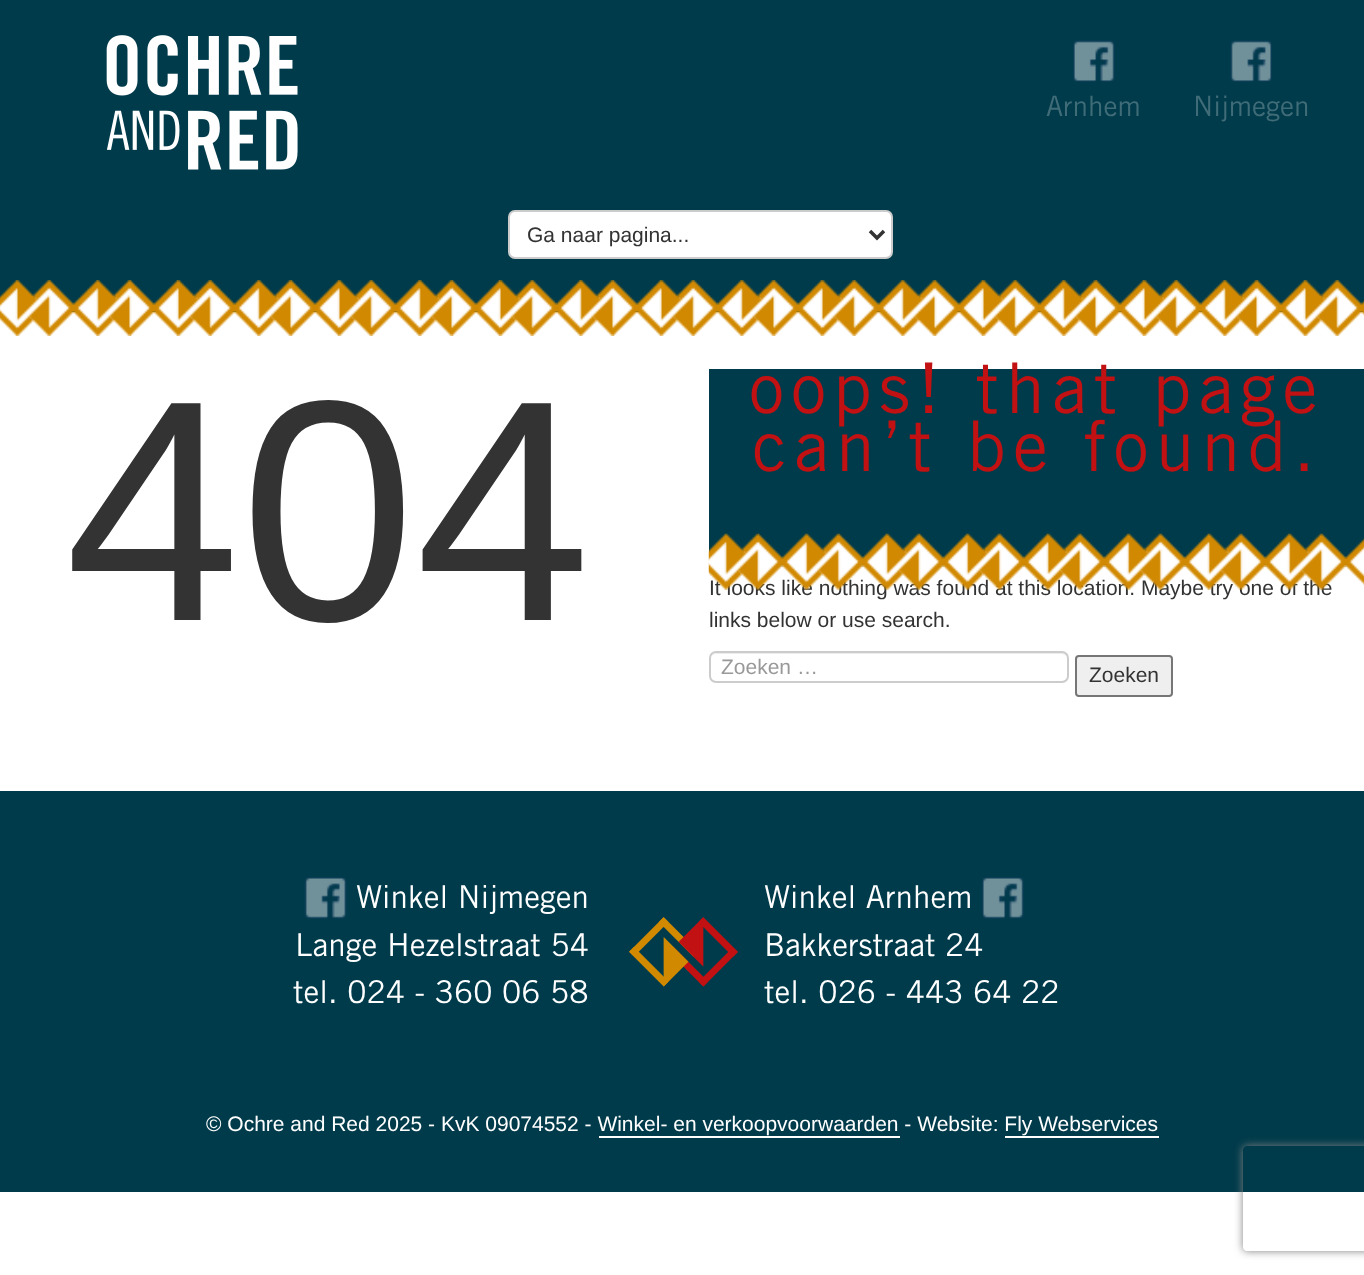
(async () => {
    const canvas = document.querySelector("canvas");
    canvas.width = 1364;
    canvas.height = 1275;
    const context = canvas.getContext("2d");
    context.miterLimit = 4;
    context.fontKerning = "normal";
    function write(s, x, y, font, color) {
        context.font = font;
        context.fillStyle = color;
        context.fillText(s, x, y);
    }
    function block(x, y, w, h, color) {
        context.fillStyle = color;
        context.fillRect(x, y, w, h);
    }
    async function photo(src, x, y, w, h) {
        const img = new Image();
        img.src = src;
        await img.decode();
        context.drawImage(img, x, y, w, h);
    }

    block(0, 0, 1364, 1275, "rgb(255, 255, 255)");
    block(0, 0, 1364, 312, "rgb(0, 59, 75)");
    await photo("media/1.png", 106, 35, 192, 135);
    await photo("media/2.png", 1073, 40, 42, 42);
    write("Arnhem", 1046, 116, "28px Trade Gothic", "rgb(64, 108, 120)");
    await photo("media/3.png", 1230, 40, 42, 42);
    write("Nijmegen", 1193, 116, "28px Trade Gothic", "rgb(64, 108, 120)");
    context.fillStyle = "rgb(255, 255, 255)";
    context.beginPath();
    context.roundRect(509, 211, 383, 47, 6);
    context.fill();
    context.strokeStyle = "rgb(204, 204, 204)";
    context.lineWidth = 2;
    context.stroke();
    context.beginPath();
    context.moveTo(870, 231);
    context.lineTo(877, 238);
    context.lineTo(884, 231);
    context.strokeStyle = "rgb(51, 51, 51)";
    context.lineWidth = 3.5;
    context.stroke();
    write("Ga naar pagina...", 527, 242, "21px Liberation Sans", "rgb(51, 51, 51)");
    await photo("media/4.png", 0, 280, 1364, 56);
    write("404", 65, 620, "315px Liberation Sans", "rgb(51, 51, 51)");
    block(709, 369, 655, 196, "rgb(0, 59, 75)");
    block(778, 565, 572, 2, "rgb(221, 221, 221)");
    context.letterSpacing = "7px";
    write("oops! that page", 749, 413, "70px Trade Gothic", "rgb(194, 17, 18)");
    write("can’t be found.", 752, 471, "70px Trade Gothic", "rgb(194, 17, 18)");
    context.letterSpacing = "0px";
    write("It looks like nothing was found at this location. Maybe try one of the", 709, 595, "21px Liberation Sans", "rgb(51, 51, 51)");
    await photo("media/5.png", 708, 533, 656, 57);
    write("links below or use search.", 709, 627, "21px Liberation Sans", "rgb(51, 51, 51)");
    context.fillStyle = "rgb(236, 236, 236)";
    context.beginPath();
    context.moveTo(716, 654);
    context.lineTo(1062, 654);
    context.bezierCurveTo(1065, 654, 1068, 657, 1068, 660);
    context.lineTo(1068, 658);
    context.bezierCurveTo(1068, 655, 1066, 653, 1063, 653);
    context.lineTo(716, 653);
    context.bezierCurveTo(714, 653, 712, 655, 711, 657);
    context.bezierCurveTo(712, 655, 714, 654, 716, 654);
    context.closePath();
    context.fill();
    context.beginPath();
    context.roundRect(710, 652, 358, 30, 6);
    context.strokeStyle = "rgb(204, 204, 204)";
    context.lineWidth = 2;
    context.stroke();
    write("Zoeken …", 721, 674, "21px Liberation Sans", "rgb(153, 153, 153)");
    context.fillStyle = "rgb(239, 239, 239)";
    context.beginPath();
    context.roundRect(1076, 656, 96, 40, 3);
    context.fill();
    context.strokeStyle = "rgb(118, 118, 118)";
    context.stroke();
    write("Zoeken", 1089, 682, "21px Liberation Sans", "rgb(51, 51, 51)");
    block(0, 791, 1364, 401, "rgb(0, 59, 75)");
    await photo("media/6.png", 304, 877, 43, 42);
    write("Winkel Nijmegen", 356, 908, "31.5px Trade Gothic", "rgb(255, 255, 255)");
    write("Lange Hezelstraat 54", 295, 956, "31.5px Trade Gothic", "rgb(255, 255, 255)");
    write("tel. 024 - 360 06 58", 293, 1003, "31.5px Trade Gothic", "rgb(255, 255, 255)");
    write("Winkel Arnhem", 764, 908, "31.5px Trade Gothic", "rgb(255, 255, 255)");
    await photo("media/7.png", 982, 877, 42, 42);
    write("Bakkerstraat 24", 764, 956, "31.5px Trade Gothic", "rgb(255, 255, 255)");
    write("tel. 026 - 443 64 22", 764, 1003, "31.5px Trade Gothic", "rgb(255, 255, 255)");
    await photo("media/8.png", 629, 917, 109, 70);
    write("© Ochre and Red 2025 - KvK 09074552 - Winkel- en verkoopvoorwaarden - Website: Fly Webservices", 206, 1131, "21px Liberation Sans", "rgb(255, 255, 255)");
    block(599, 1136, 301, 2, "rgb(255, 255, 255)");
    block(1005, 1136, 154, 2, "rgb(255, 255, 255)");
    context.save();
    context.beginPath();
    context.moveTo(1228, 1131);
    context.lineTo(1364, 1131);
    context.lineTo(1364, 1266);
    context.lineTo(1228, 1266);
    context.closePath();
    context.moveTo(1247, 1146);
    context.lineTo(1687, 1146);
    context.bezierCurveTo(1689, 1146, 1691, 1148, 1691, 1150);
    context.lineTo(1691, 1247);
    context.bezierCurveTo(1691, 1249, 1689, 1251, 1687, 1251);
    context.lineTo(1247, 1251);
    context.bezierCurveTo(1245, 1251, 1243, 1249, 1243, 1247);
    context.lineTo(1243, 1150);
    context.bezierCurveTo(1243, 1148, 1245, 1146, 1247, 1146);
    context.closePath();
    context.clip("evenodd");
    context.fillStyle = "rgb(128, 128, 128)";
    context.filter = "blur(4.5px)";
    context.beginPath();
    context.roundRect(1243, 1146, 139, 105, 4);
    context.fill();
    context.filter = "none";
    context.restore();
})();
